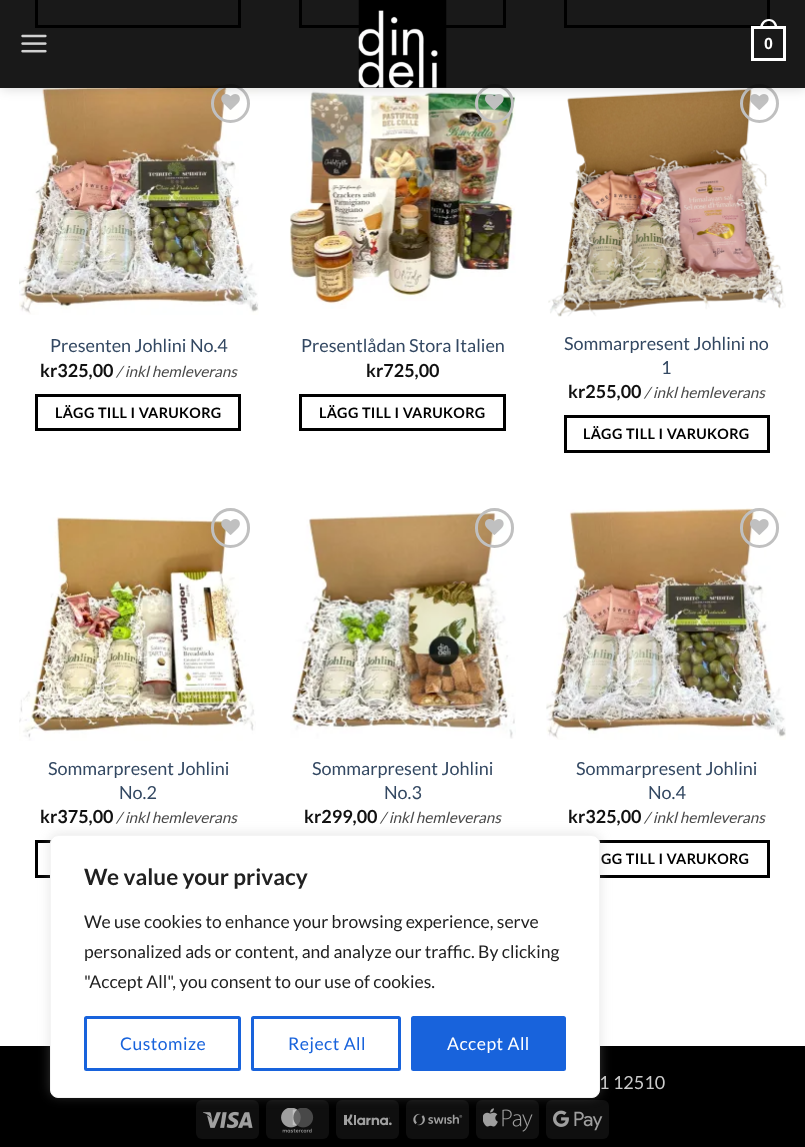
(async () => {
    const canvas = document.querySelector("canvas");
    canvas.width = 805;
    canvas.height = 1147;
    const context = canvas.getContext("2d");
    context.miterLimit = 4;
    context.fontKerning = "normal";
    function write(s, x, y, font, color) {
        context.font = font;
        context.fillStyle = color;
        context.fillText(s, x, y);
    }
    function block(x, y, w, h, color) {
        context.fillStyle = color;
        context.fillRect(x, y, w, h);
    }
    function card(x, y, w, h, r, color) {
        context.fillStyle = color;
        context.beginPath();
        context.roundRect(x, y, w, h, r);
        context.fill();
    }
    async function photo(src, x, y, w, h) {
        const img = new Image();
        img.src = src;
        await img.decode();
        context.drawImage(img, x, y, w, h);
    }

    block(0, 0, 805, 1147, "rgb(255, 255, 255)");
    context.strokeStyle = "rgb(0, 0, 0)";
    context.lineWidth = 3;
    context.strokeRect(36.5, -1.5, 203, 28);
    context.strokeRect(300.5, -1.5, 204, 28);
    context.strokeRect(565.5, -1.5, 203, 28);
    await photo("media/3.png", 19, 84, 240, 231);
    context.beginPath();
    context.arc(230.5, 103.5, 18, 0, Math.PI * 2);
    context.strokeStyle = "rgb(192, 192, 192)";
    context.stroke();
    await photo("media/4.png", 221, 94, 19, 16);
    await photo("media/6.png", 289, 90, 227, 219);
    context.beginPath();
    context.arc(494.5, 103.5, 18, 0, Math.PI * 2);
    context.stroke();
    await photo("media/5.png", 485, 94, 19, 16);
    await photo("media/8.png", 548, 88, 238, 229);
    context.beginPath();
    context.arc(759.5, 103.5, 18, 0, Math.PI * 2);
    context.stroke();
    await photo("media/7.png", 750, 94, 19, 16);
    context.save();
    context.beginPath();
    context.moveTo(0, 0);
    context.lineTo(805, 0);
    context.lineTo(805, 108);
    context.lineTo(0, 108);
    context.closePath();
    context.moveTo(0, 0);
    context.lineTo(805, 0);
    context.lineTo(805, 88);
    context.lineTo(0, 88);
    context.closePath();
    context.clip("evenodd");
    context.fillStyle = "rgba(0, 0, 0, 0.15)";
    context.filter = "blur(6px)";
    context.beginPath();
    context.rect(1, 1, 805, 88);
    context.fill();
    context.filter = "none";
    context.restore();
    block(0, 0, 805, 88, "rgba(0, 0, 0, 0.9)");
    await photo("media/1.png", 21, 34, 26, 19);
    await photo("media/2.png", 358, 0, 89, 88);
    context.strokeStyle = "rgb(255, 255, 255)";
    context.strokeRect(752.5, 27.5, 32, 32);
    context.fillStyle = "rgb(255, 255, 255)";
    context.beginPath();
    context.moveTo(769, 19);
    context.bezierCurveTo(774.5, 19, 777.5, 23.5, 777.5, 29);
    context.lineTo(760, 29);
    context.bezierCurveTo(760, 23.5, 763, 19, 769, 19);
    context.closePath();
    context.moveTo(769, 21);
    context.bezierCurveTo(773, 21, 775, 25, 775, 29);
    context.lineTo(762.5, 29);
    context.bezierCurveTo(762.5, 25, 764.5, 21, 769, 21);
    context.closePath();
    context.fill("evenodd");
    write("0", 764, 49, "bold 16px Liberation Sans", "rgb(255, 255, 255)");
    write("Presenten Johlini No.4", 50, 352, "18px Lato", "rgb(51, 72, 98)");
    write("kr325,00", 40, 377, "bold 18px Lato", "rgb(17, 17, 17)");
    write("/ inkl hemleverans", 116, 377, "italic 15.25px Lato", "rgb(74, 74, 74)");
    context.strokeStyle = "rgb(0, 0, 0)";
    context.strokeRect(36.5, 395.5, 203, 34);
    context.letterSpacing = "0.4px";
    write("LÄGG TILL I VARUKORG", 55, 418, "bold 14.4px Lato", "rgb(0, 0, 0)");
    context.letterSpacing = "0px";
    write("Presentlådan Stora Italien", 301, 352, "18px Lato", "rgb(51, 72, 98)");
    write("kr725,00", 366, 377, "bold 18px Lato", "rgb(17, 17, 17)");
    context.strokeRect(300.5, 395.5, 204, 34);
    context.letterSpacing = "0.4px";
    write("LÄGG TILL I VARUKORG", 319, 418, "bold 14.4px Lato", "rgb(0, 0, 0)");
    context.letterSpacing = "0px";
    write("Sommarpresent Johlini no", 564, 350, "18px Lato", "rgb(51, 72, 98)");
    write("1", 661, 374, "18px Lato", "rgb(51, 72, 98)");
    write("kr255,00", 568, 398, "bold 18px Lato", "rgb(17, 17, 17)");
    write("/ inkl hemleverans", 644, 398, "italic 15.25px Lato", "rgb(74, 74, 74)");
    context.strokeRect(565.5, 416.5, 203, 35);
    context.letterSpacing = "0.4px";
    write("LÄGG TILL I VARUKORG", 583, 439, "bold 14.4px Lato", "rgb(0, 0, 0)");
    await photo("media/10.png", 19, 517, 237, 224);
    context.beginPath();
    context.roundRect(212.5, 509.5, 36, 37, 18);
    context.strokeStyle = "rgb(192, 192, 192)";
    context.stroke();
    await photo("media/9.png", 221, 519, 19, 16);
    context.letterSpacing = "0px";
    write("Sommarpresent Johlini", 48, 775, "18px Lato", "rgb(51, 72, 98)");
    write("No.2", 119, 799, "18px Lato", "rgb(51, 72, 98)");
    write("kr375,00", 40, 823, "bold 18px Lato", "rgb(17, 17, 17)");
    write("/ inkl hemleverans", 116, 823, "italic 15.25px Lato", "rgb(74, 74, 74)");
    context.strokeStyle = "rgb(0, 0, 0)";
    context.strokeRect(36.5, 841.5, 203, 35);
    await photo("media/12.png", 290, 512, 226, 227);
    context.beginPath();
    context.roundRect(476.5, 509.5, 36, 37, 18);
    context.strokeStyle = "rgb(192, 192, 192)";
    context.stroke();
    await photo("media/11.png", 485, 519, 19, 16);
    write("Sommarpresent Johlini", 312, 775, "18px Lato", "rgb(51, 72, 98)");
    write("No.3", 384, 799, "18px Lato", "rgb(51, 72, 98)");
    write("kr299,00", 304, 823, "bold 18px Lato", "rgb(17, 17, 17)");
    write("/ inkl hemleverans", 380, 823, "italic 15.25px Lato", "rgb(74, 74, 74)");
    await photo("media/13.png", 546, 508, 240, 232);
    context.beginPath();
    context.roundRect(741.5, 509.5, 36, 37, 18);
    context.stroke();
    await photo("media/14.png", 750, 519, 19, 16);
    write("Sommarpresent Johlini", 576, 775, "18px Lato", "rgb(51, 72, 98)");
    write("No.4", 648, 799, "18px Lato", "rgb(51, 72, 98)");
    write("kr325,00", 568, 823, "bold 18px Lato", "rgb(17, 17, 17)");
    write("/ inkl hemleverans", 644, 823, "italic 15.25px Lato", "rgb(74, 74, 74)");
    context.strokeStyle = "rgb(0, 0, 0)";
    context.strokeRect(565.5, 841.5, 203, 35);
    context.letterSpacing = "0.4px";
    write("GG TILL I VARUKORG", 601, 864, "bold 14.4px Lato", "rgb(0, 0, 0)");
    block(0, 1046, 805, 101, "rgb(0, 0, 0)");
    context.letterSpacing = "0px";
    write("1 12510", 599, 1089, "18px Lato", "rgb(204, 204, 204)");
    card(196, 1100, 63, 39, 6, "rgb(15, 15, 15)");
    await photo("media/15.png", 203, 1111, 50, 18);
    card(266, 1100, 63, 39, 6, "rgb(15, 15, 15)");
    await photo("media/16.png", 281, 1108, 33, 25);
    card(336, 1100, 63, 39, 6, "rgb(15, 15, 15)");
    await photo("media/17.png", 344, 1114, 48, 12);
    card(406, 1100, 63, 39, 6, "rgb(15, 15, 15)");
    await photo("media/18.png", 413, 1113, 50, 13);
    card(476, 1100, 63, 39, 6, "rgb(15, 15, 15)");
    await photo("media/19.png", 483, 1108, 50, 24);
    card(546, 1100, 63, 39, 6, "rgb(15, 15, 15)");
    await photo("media/20.png", 553, 1110, 50, 21);
    context.fillStyle = "rgba(172, 171, 171, 0.3)";
    context.filter = "blur(6px)";
    context.beginPath();
    context.roundRect(50, 834, 550, 262, 8);
    context.fill();
    context.filter = "none";
    context.fillStyle = "rgb(255, 255, 255)";
    context.beginPath();
    context.roundRect(50.5, 835.5, 549, 262, 7.5);
    context.fill();
    context.strokeStyle = "rgb(244, 244, 244)";
    context.lineWidth = 1;
    context.stroke();
    write("We value your privacy", 84, 885, "bold 22.5px Lato", "rgb(33, 33, 33)");
    write("We use cookies to enhance your browsing experience, serve", 84, 928, "17.5px Lato", "rgb(33, 33, 33)");
    write("personalized ads or content, and analyze our traffic. By clicking", 84, 958, "17.5px Lato", "rgb(33, 33, 33)");
    write("\"Accept All\", you consent to our use of cookies.", 84, 988, "17.5px Lato", "rgb(33, 33, 33)");
    context.beginPath();
    context.roundRect(85.5, 1017.5, 154, 52, 1);
    context.strokeStyle = "rgb(24, 99, 220)";
    context.lineWidth = 3;
    context.stroke();
    context.letterSpacing = "0.5px";
    write("Customize", 120, 1050, "17.5px Lato", "rgb(24, 99, 220)");
    context.beginPath();
    context.roundRect(252.5, 1017.5, 147, 52, 1);
    context.stroke();
    write("Reject All", 288, 1050, "17.5px Lato", "rgb(24, 99, 220)");
    context.beginPath();
    context.roundRect(412.5, 1017.5, 152, 52, 1);
    context.fill();
    context.stroke();
    write("Accept All", 447, 1050, "17.5px Lato", "rgb(255, 255, 255)");
})();
